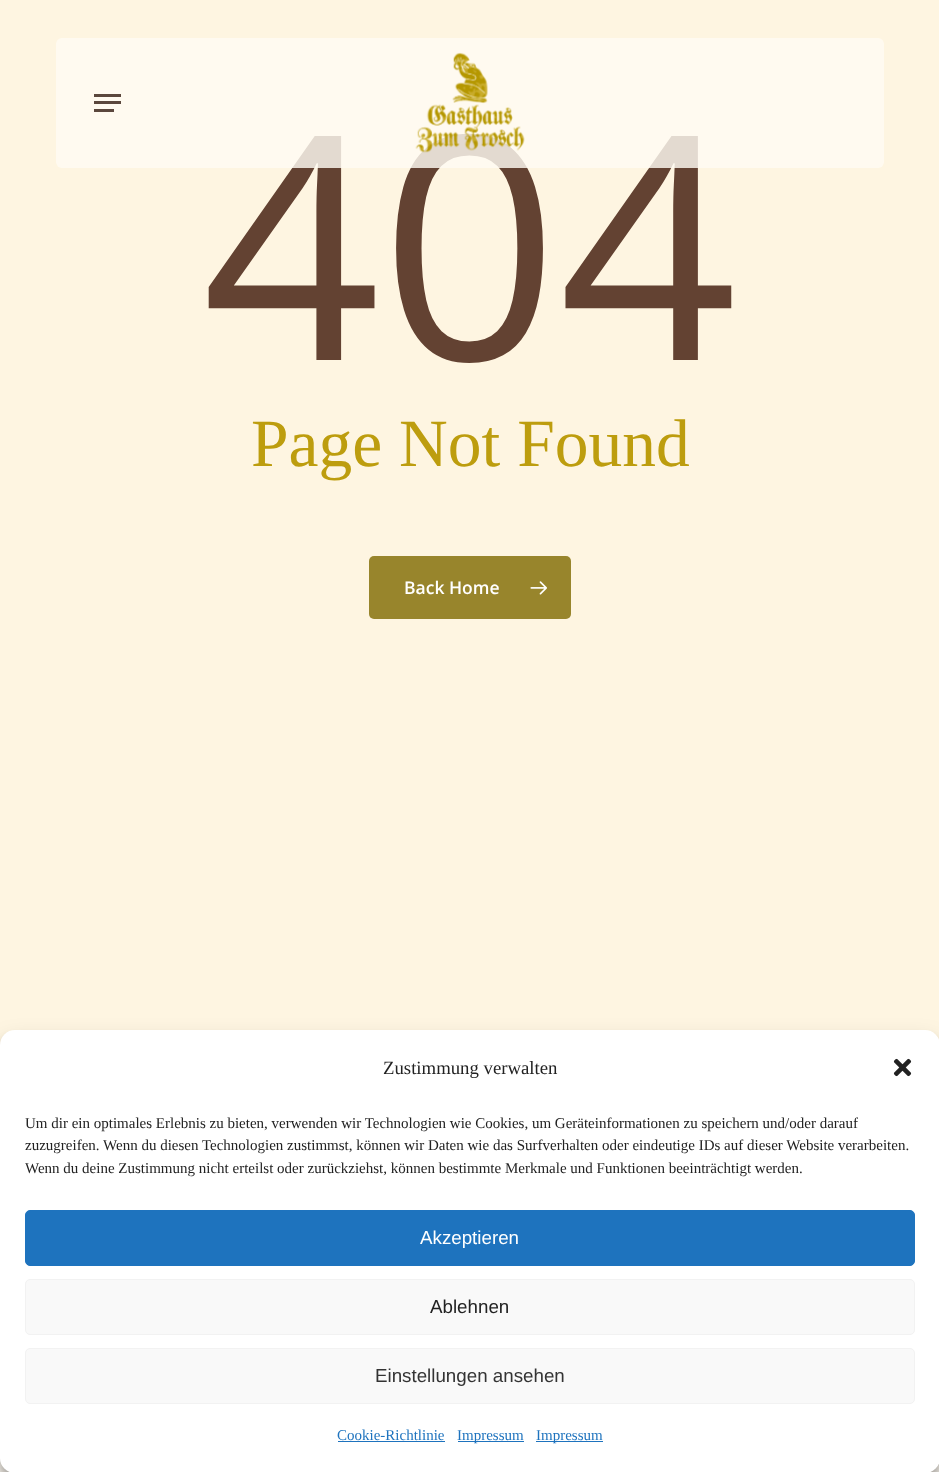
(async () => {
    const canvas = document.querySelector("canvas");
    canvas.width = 939;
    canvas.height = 1472;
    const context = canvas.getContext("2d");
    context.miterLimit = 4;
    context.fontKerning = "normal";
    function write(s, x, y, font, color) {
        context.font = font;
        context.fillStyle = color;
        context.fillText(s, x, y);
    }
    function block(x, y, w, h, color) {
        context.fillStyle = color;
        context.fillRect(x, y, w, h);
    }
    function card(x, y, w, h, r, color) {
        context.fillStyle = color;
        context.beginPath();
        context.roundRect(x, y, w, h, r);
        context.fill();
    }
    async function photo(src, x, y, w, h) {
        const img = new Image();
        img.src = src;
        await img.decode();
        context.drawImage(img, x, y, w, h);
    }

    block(0, 0, 939, 1472, "rgb(254, 245, 225)");
    write("404", 202, 360, "312px Open Sans", "rgb(99, 66, 50)");
    card(56, 38, 828, 130, 6, "rgba(255, 251, 243, 0.82)");
    block(94, 94, 27, 3, "rgb(91, 71, 61)");
    block(94, 109, 20, 3, "rgb(91, 71, 61)");
    block(94, 101, 27, 3, "rgb(91, 71, 61)");
    await photo("media/1.png", 415, 52, 110, 101);
    write("Page Not Found", 251, 466, "67.5px Liberation Serif", "rgb(189, 157, 14)");
    card(369, 556, 202, 63, 5, "rgb(152, 133, 44)");
    write("Back Home", 404, 594, "600 17.5px Open Sans", "rgb(255, 255, 255)");
    await photo("media/2.png", 530, 581, 17, 14);
    block(0, 1458, 939, 14, "rgb(255, 251, 243)");
    context.fillStyle = "rgba(0, 0, 0, 0.23)";
    context.filter = "blur(4px)";
    context.beginPath();
    context.roundRect(0, 1038, 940, 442, 15);
    context.fill();
    context.filter = "none";
    context.fillStyle = "rgba(0, 0, 0, 0.19)";
    context.filter = "blur(12.5px)";
    context.beginPath();
    context.roundRect(0, 1043, 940, 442, 15);
    context.fill();
    context.filter = "none";
    card(0, 1030, 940, 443, 15, "rgb(255, 255, 255)");
    write("Zustimmung verwalten", 383, 1074, "18.75px Liberation Serif", "rgb(34, 34, 34)");
    await photo("media/3.png", 893, 1058, 19, 19);
    write("Um dir ein optimales Erlebnis zu bieten, verwenden wir Technologien wie Cookies, um Geräteinformationen zu speichern und/oder darauf", 25, 1128, "15px Liberation Serif", "rgb(34, 34, 34)");
    write("zuzugreifen. Wenn du diesen Technologien zustimmst, können wir Daten wie das Surfverhalten oder eindeutige IDs auf dieser Website verarbeiten.", 25, 1150, "15px Liberation Serif", "rgb(34, 34, 34)");
    write("Wenn du deine Zustimmung nicht erteilst oder zurückziehst, können bestimmte Merkmale und Funktionen beeinträchtigt werden.", 25, 1173, "15px Liberation Serif", "rgb(34, 34, 34)");
    context.fillStyle = "rgb(30, 115, 190)";
    context.beginPath();
    context.roundRect(25.5, 1210.5, 889, 55, 4.5);
    context.fill();
    context.strokeStyle = "rgb(30, 115, 190)";
    context.stroke();
    write("Akzeptieren", 420, 1244, "18.75px Liberation Sans", "rgb(255, 255, 255)");
    context.fillStyle = "rgb(249, 249, 249)";
    context.beginPath();
    context.roundRect(25.5, 1279.5, 889, 55, 4.5);
    context.fill();
    context.strokeStyle = "rgb(242, 242, 242)";
    context.stroke();
    write("Ablehnen", 430, 1313, "18.75px Liberation Sans", "rgb(34, 34, 34)");
    context.fillStyle = "rgb(249, 249, 249)";
    context.beginPath();
    context.roundRect(25.5, 1348.5, 889, 55, 4.5);
    context.fill();
    context.stroke();
    write("Einstellungen ansehen", 375, 1382, "18.75px Liberation Sans", "rgb(51, 51, 51)");
    write("Cookie-Richtlinie", 337, 1440, "15px Liberation Serif", "rgb(30, 115, 190)");
    block(338, 1441, 107, 1, "rgb(30, 115, 190)");
    block(458, 1441, 66, 1, "rgb(30, 115, 190)");
    write("Impressum", 457, 1440, "15px Liberation Serif", "rgb(30, 115, 190)");
    block(536, 1441, 67, 1, "rgb(30, 115, 190)");
    write("Impressum", 536, 1440, "15px Liberation Serif", "rgb(30, 115, 190)");
})();
